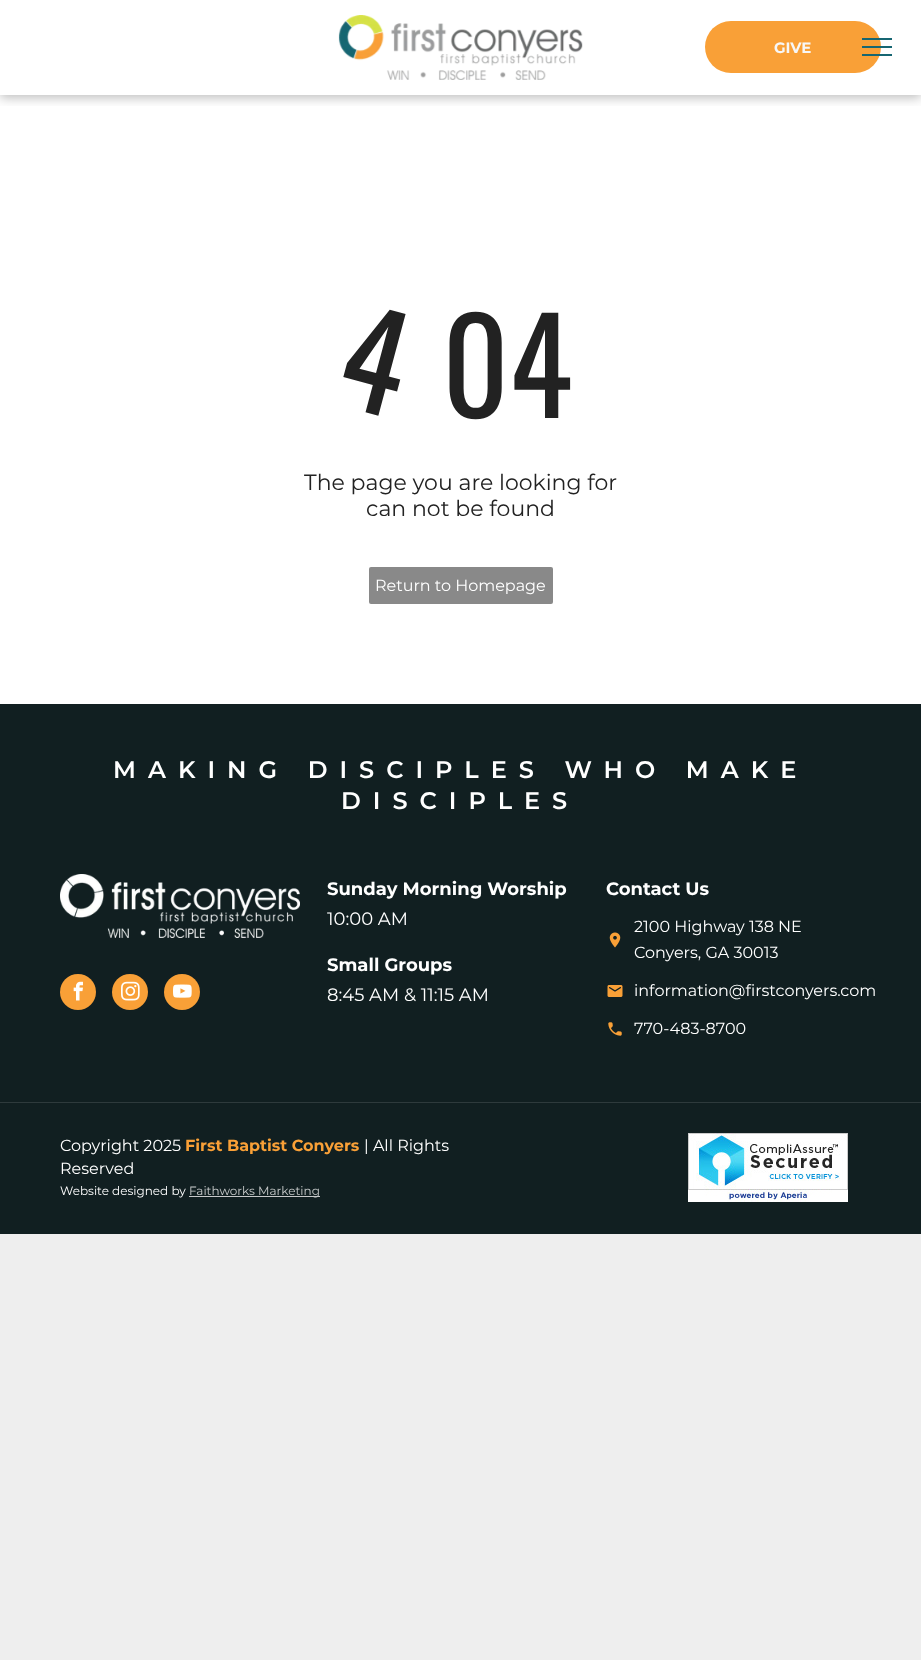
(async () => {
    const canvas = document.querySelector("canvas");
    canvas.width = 921;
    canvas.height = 1660;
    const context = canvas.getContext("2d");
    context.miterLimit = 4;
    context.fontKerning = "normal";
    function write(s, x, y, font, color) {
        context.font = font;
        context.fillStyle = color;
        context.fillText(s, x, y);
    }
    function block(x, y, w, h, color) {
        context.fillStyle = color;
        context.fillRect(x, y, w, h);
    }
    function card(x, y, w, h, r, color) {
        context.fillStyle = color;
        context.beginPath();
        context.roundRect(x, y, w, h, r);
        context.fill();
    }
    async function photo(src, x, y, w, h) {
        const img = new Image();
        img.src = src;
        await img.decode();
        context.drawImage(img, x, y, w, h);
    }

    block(0, 0, 921, 1660, "rgb(238, 238, 238)");
    block(0, 0, 921, 704, "rgb(255, 255, 255)");
    context.save();
    context.beginPath();
    context.rect(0, 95, 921, 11);
    context.clip();
    context.fillStyle = "rgba(0, 0, 0, 0.25)";
    context.filter = "blur(5.5px)";
    context.beginPath();
    context.rect(0, 3, 921, 95);
    context.fill();
    context.filter = "none";
    context.restore();
    await photo("media/1.png", 338, 15, 245, 65);
    card(705, 21, 176, 52, 26, "rgb(249, 160, 55)");
    write("GIVE", 774, 53, "bold 15px Montserrat", "rgb(247, 247, 247)");
    block(862, 38, 30, 2, "rgb(22, 102, 114)");
    block(862, 46, 30, 2, "rgb(22, 102, 114)");
    block(862, 54, 30, 2, "rgb(22, 102, 114)");
    context.font = "130px Oswald";
    context.fillStyle = "rgb(34, 34, 34)";
    context.save();
    context.translate(331, 403);
    context.rotate(15 * Math.PI / 180);
    context.fillText("4", 0, 0);
    context.restore();
    write("04", 442, 418, "130px Oswald", "rgb(34, 34, 34)");
    write("The page you are looking for", 304, 490, "22px Montserrat", "rgb(34, 34, 34)");
    write("can not be found", 366, 516, "22px Montserrat", "rgb(34, 34, 34)");
    card(369, 567, 184, 37, 2, "rgb(137, 137, 137)");
    write("Return to Homepage", 375, 591, "16px Montserrat", "rgb(255, 255, 255)");
    block(0, 704, 921, 398, "rgb(17, 31, 33)");
    context.letterSpacing = "12px";
    write("MAKING DISCIPLES WHO MAKE", 113, 778, "600 24px Montserrat", "rgb(255, 255, 255)");
    write("DISCIPLES", 341, 809, "600 24px Montserrat", "rgb(255, 255, 255)");
    await photo("media/2.png", 60, 874, 240, 64);
    context.fillStyle = "rgb(249, 160, 55)";
    context.beginPath();
    context.arc(78, 992, 18, 0, Math.PI * 2);
    context.fill();
    await photo("media/3.png", 73, 981, 10, 20);
    context.beginPath();
    context.arc(130, 992, 18, 0, Math.PI * 2);
    context.fill();
    await photo("media/4.png", 121, 981, 19, 20);
    context.beginPath();
    context.arc(182, 992, 18, 0, Math.PI * 2);
    context.fill();
    await photo("media/5.png", 173, 984, 19, 14);
    context.letterSpacing = "0px";
    write("Sunday Morning Worship", 327, 895, "bold 18px Montserrat", "rgb(255, 255, 255)");
    write("10:00 AM", 327, 925, "18px Montserrat", "rgb(255, 255, 255)");
    write("Small Groups", 327, 971, "bold 18px Montserrat", "rgb(255, 255, 255)");
    write("8:45 AM & 11:15 AM", 327, 1001, "18px Montserrat", "rgb(255, 255, 255)");
    write("Contact Us", 606, 895, "bold 18px Montserrat", "rgb(255, 255, 255)");
    await photo("media/6.png", 609, 932, 12, 16);
    write("2100 Highway 138 NE", 634, 932, "16px Montserrat", "rgb(255, 255, 255)");
    write("Conyers, GA 30013", 634, 958, "16px Montserrat", "rgb(255, 255, 255)");
    await photo("media/7.png", 607, 985, 16, 12);
    write("information@firstconyers.com", 634, 996, "16px Montserrat", "rgb(255, 255, 255)");
    await photo("media/8.png", 608, 1022, 14, 14);
    write("770-483-8700", 634, 1034, "16px Montserrat", "rgb(255, 255, 255)");
    block(0, 1103, 921, 131, "rgb(17, 31, 33)");
    block(0, 1102, 921, 1, "rgb(46, 58, 60)");
    write("Copyright 2025", 60, 1151, "16px Montserrat", "rgb(255, 255, 255)");
    write("First Baptist Conyers", 185, 1151, "bold 16px Montserrat", "rgb(249, 160, 55)");
    write("| All Rights", 364, 1151, "16px Montserrat", "rgb(255, 255, 255)");
    write("Reserved", 60, 1174, "16px Montserrat", "rgb(255, 255, 255)");
    write("Website designed by", 60, 1195, "12px Montserrat", "rgb(255, 255, 255)");
    block(189, 1196, 131, 1, "rgb(199, 201, 202)");
    write("Faithworks Marketing", 189, 1195, "12px Montserrat", "rgb(199, 202, 202)");
    await photo("media/9.png", 688, 1133, 160, 69);
})();
